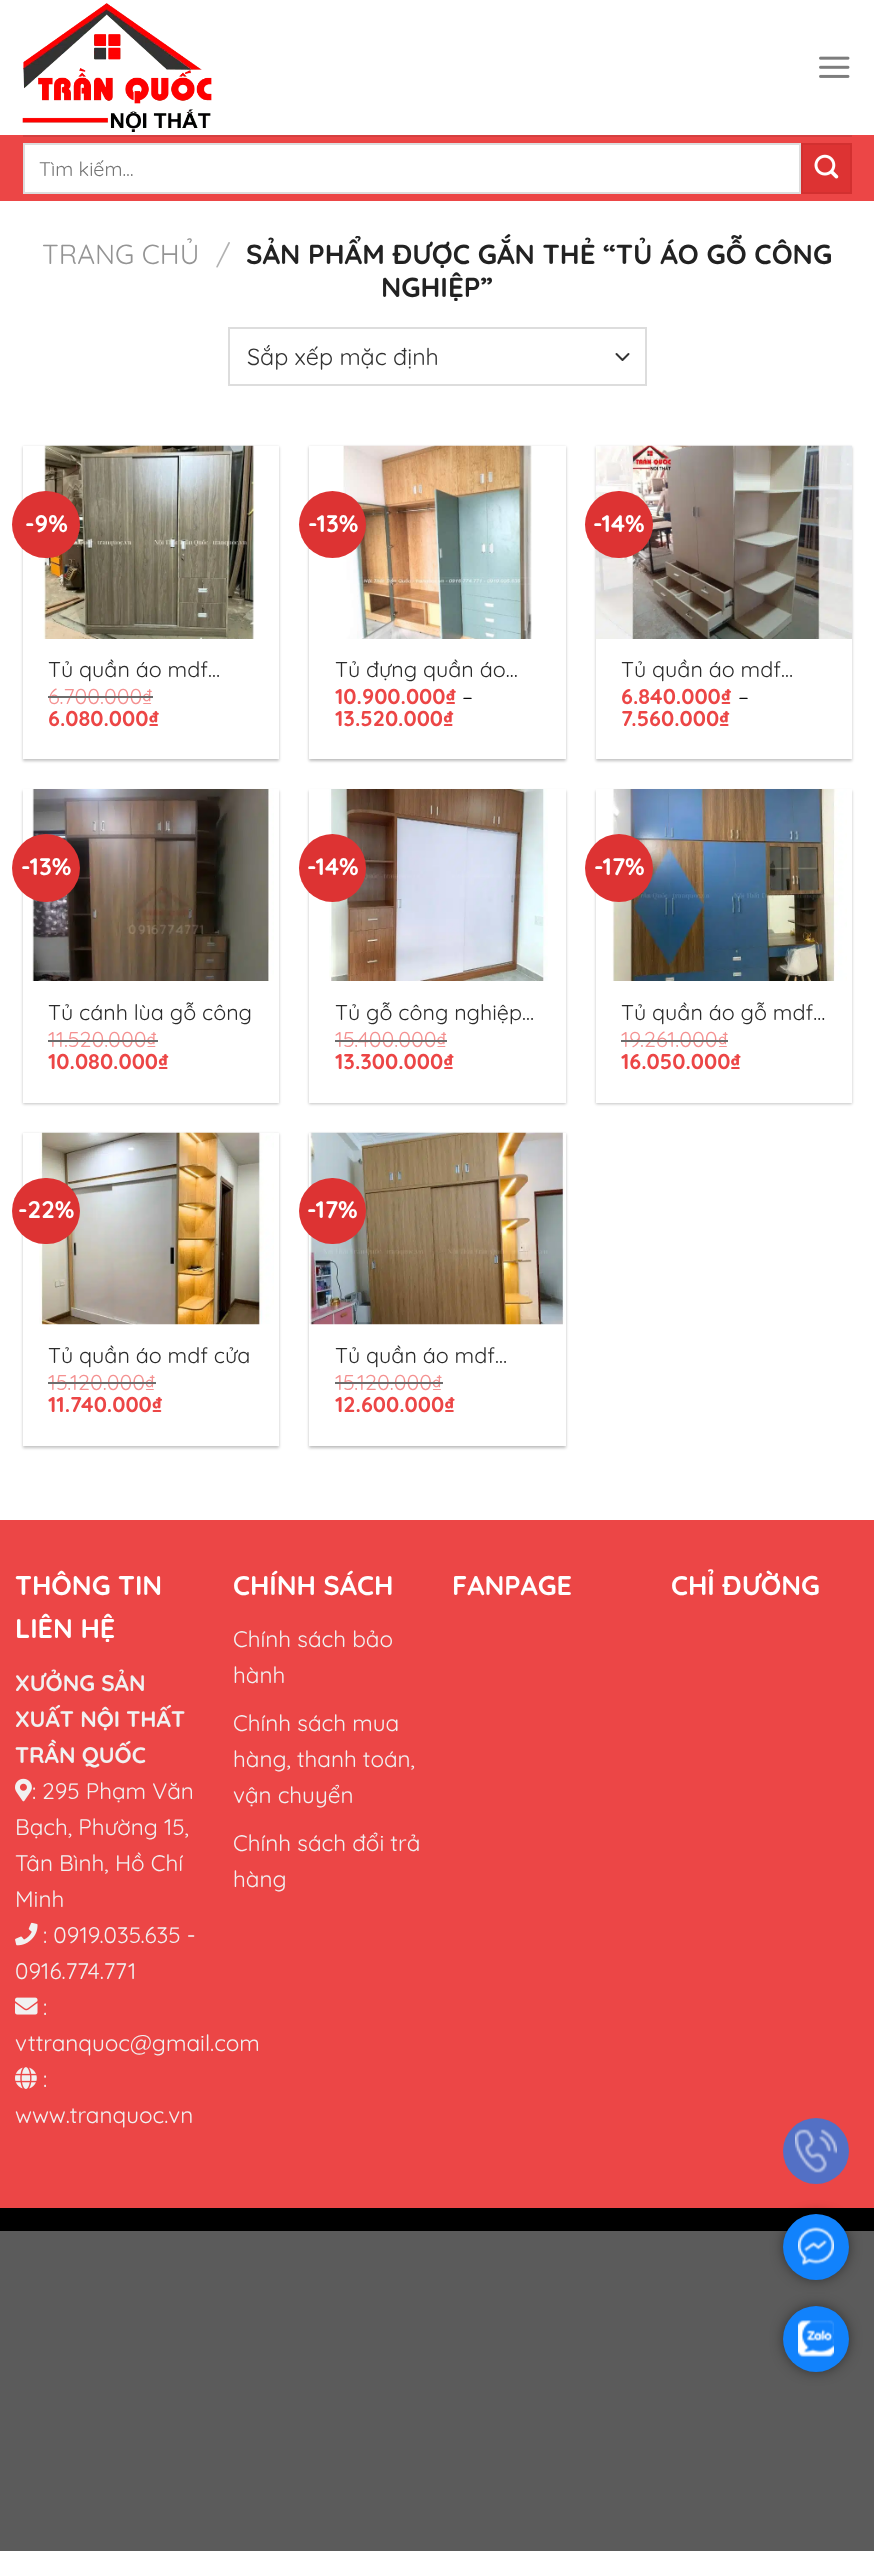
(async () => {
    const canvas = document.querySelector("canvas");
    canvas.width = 874;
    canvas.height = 2551;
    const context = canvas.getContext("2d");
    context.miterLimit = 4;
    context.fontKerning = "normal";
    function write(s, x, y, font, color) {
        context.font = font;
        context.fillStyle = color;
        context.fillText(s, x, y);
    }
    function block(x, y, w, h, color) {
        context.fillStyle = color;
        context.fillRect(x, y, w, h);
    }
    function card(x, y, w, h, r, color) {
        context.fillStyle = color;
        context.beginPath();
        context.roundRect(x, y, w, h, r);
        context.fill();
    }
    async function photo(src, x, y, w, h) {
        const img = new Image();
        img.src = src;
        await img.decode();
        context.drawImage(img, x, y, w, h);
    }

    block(0, 0, 874, 2551, "rgb(91, 91, 91)");
    block(0, 0, 874, 1520, "rgb(255, 255, 255)");
    await photo("media/1.png", 22, 3, 190, 129);
    await photo("media/2.png", 819, 56, 31, 22);
    block(0, 135, 874, 66, "rgb(236, 70, 70)");
    block(23, 135, 829, 2, "rgb(213, 64, 64)");
    context.fillStyle = "rgb(255, 255, 255)";
    context.beginPath();
    context.rect(24, 144, 776, 49);
    context.fill();
    context.strokeStyle = "rgb(221, 221, 221)";
    context.lineWidth = 2;
    context.stroke();
    write("Tìm kiếm…", 39, 176, "19.75px Quicksand", "rgb(117, 117, 117)");
    context.fillStyle = "rgb(221, 51, 51)";
    context.beginPath();
    context.rect(802, 144, 49, 49);
    context.fill();
    context.strokeStyle = "rgb(210, 48, 48)";
    context.stroke();
    await photo("media/3.png", 814, 154, 25, 25);
    write("TRANG CHỦ", 42, 264, "27.6px Quicksand", "rgb(148, 148, 148)");
    write("/", 216, 264, "27.6px Quicksand", "rgb(178, 178, 178)");
    write("SẢN PHẨM ĐƯỢC GẮN THẺ “TỦ ÁO GỖ CÔNG", 246, 264, "bold 27.6px Quicksand", "rgb(34, 34, 34)");
    write("NGHIỆP”", 381, 297, "bold 27.6px Quicksand", "rgb(34, 34, 34)");
    context.beginPath();
    context.moveTo(616.5, 354);
    context.lineTo(622.5, 360);
    context.lineTo(628.5, 354);
    context.strokeStyle = "rgb(51, 51, 51)";
    context.lineCap = "round";
    context.lineJoin = "round";
    context.stroke();
    context.strokeStyle = "rgb(221, 221, 221)";
    context.lineJoin = "miter";
    context.strokeRect(229, 328, 417, 57);
    write("Sắp xếp mặc định", 247, 365, "23.25px Quicksand", "rgb(51, 51, 51)");
    context.save();
    context.beginPath();
    context.moveTo(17, 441);
    context.lineTo(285, 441);
    context.lineTo(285, 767);
    context.lineTo(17, 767);
    context.closePath();
    context.moveTo(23, 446);
    context.lineTo(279, 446);
    context.lineTo(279, 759);
    context.lineTo(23, 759);
    context.closePath();
    context.clip("evenodd");
    context.fillStyle = "rgba(0, 0, 0, 0.24)";
    context.filter = "blur(1.5px)";
    context.beginPath();
    context.rect(23, 447, 256, 314);
    context.fill();
    context.filter = "none";
    context.restore();
    await photo("media/4.png", 43, 445, 212, 194);
    card(12, 491, 68, 67, 33.5, "rgb(221, 51, 51)");
    write("-9%", 25, 532, "bold 24px Quicksand", "rgb(255, 255, 255)");
    write("Tủ quần áo mdf…", 48, 677, "21.5px Quicksand", "rgb(43, 43, 43)");
    write("6.700.000₫", 48, 704, "21.5px Quicksand", "rgb(244, 144, 144)");
    block(48, 696, 105, 2, "rgb(108, 108, 108)");
    write("6.080.000₫", 48, 726, "bold 21.5px Quicksand", "rgb(236, 70, 70)");
    context.fillStyle = "rgba(0, 0, 0, 0.24)";
    context.filter = "blur(1.5px)";
    context.beginPath();
    context.rect(309, 447, 257, 314);
    context.fill();
    context.filter = "none";
    context.fillStyle = "rgba(0, 0, 0, 0.12)";
    context.filter = "blur(2px)";
    context.beginPath();
    context.rect(312, 450, 251, 308);
    context.fill();
    context.filter = "none";
    block(309, 446, 257, 313, "rgb(255, 255, 255)");
    await photo("media/5.png", 343, 445, 189, 194);
    context.fillStyle = "rgb(221, 51, 51)";
    context.beginPath();
    context.arc(332.5, 524.5, 33.5, 0, Math.PI * 2);
    context.fill();
    write("-13%", 308, 532, "bold 24px Quicksand", "rgb(255, 255, 255)");
    write("Tủ đựng quần áo…", 335, 677, "21.5px Quicksand", "rgb(43, 43, 43)");
    write("10.900.000₫", 335, 704, "bold 21.5px Quicksand", "rgb(236, 70, 70)");
    write("–", 462, 704, "21.5px Quicksand", "rgb(10, 10, 10)");
    write("13.520.000₫", 335, 726, "bold 21.5px Quicksand", "rgb(236, 70, 70)");
    context.save();
    context.beginPath();
    context.moveTo(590, 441);
    context.lineTo(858, 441);
    context.lineTo(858, 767);
    context.lineTo(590, 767);
    context.closePath();
    context.moveTo(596, 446);
    context.lineTo(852, 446);
    context.lineTo(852, 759);
    context.lineTo(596, 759);
    context.closePath();
    context.clip("evenodd");
    context.fillStyle = "rgba(0, 0, 0, 0.24)";
    context.filter = "blur(1.5px)";
    context.beginPath();
    context.rect(596, 447, 256, 314);
    context.fill();
    context.filter = "none";
    context.restore();
    await photo("media/6.png", 595, 445, 257, 194);
    card(585, 491, 68, 67, 33.5, "rgb(221, 51, 51)");
    write("-14%", 593, 532, "bold 24px Quicksand", "rgb(255, 255, 255)");
    write("Tủ quần áo mdf…", 621, 677, "21.5px Quicksand", "rgb(43, 43, 43)");
    write("6.840.000₫", 621, 704, "bold 21.5px Quicksand", "rgb(236, 70, 70)");
    write("–", 738, 704, "21.5px Quicksand", "rgb(10, 10, 10)");
    write("7.560.000₫", 621, 726, "bold 21.5px Quicksand", "rgb(236, 70, 70)");
    context.fillStyle = "rgba(0, 0, 0, 0.24)";
    context.filter = "blur(1.5px)";
    context.beginPath();
    context.rect(23, 791, 256, 313);
    context.fill();
    context.filter = "none";
    block(23, 789, 256, 314, "rgb(255, 255, 255)");
    await photo("media/7.png", 32, 789, 242, 192);
    context.fillStyle = "rgb(221, 51, 51)";
    context.beginPath();
    context.arc(46, 868, 34, 0, Math.PI * 2);
    context.fill();
    write("-13%", 21, 875, "bold 24px Quicksand", "rgb(255, 255, 255)");
    write("Tủ cánh lùa gỗ công", 48, 1020, "21.5px Quicksand", "rgb(43, 43, 43)");
    write("11.520.000₫", 48, 1047, "21.5px Quicksand", "rgb(244, 144, 144)");
    block(48, 1040, 110, 2, "rgb(108, 108, 108)");
    write("10.080.000₫", 48, 1069, "bold 21.5px Quicksand", "rgb(236, 70, 70)");
    context.fillStyle = "rgba(0, 0, 0, 0.24)";
    context.filter = "blur(1.5px)";
    context.beginPath();
    context.rect(309, 791, 257, 313);
    context.fill();
    context.filter = "none";
    block(309, 789, 257, 314, "rgb(255, 255, 255)");
    await photo("media/8.png", 329, 789, 219, 192);
    card(299, 834, 67, 68, 33.5, "rgb(221, 51, 51)");
    write("-14%", 307, 875, "bold 24px Quicksand", "rgb(255, 255, 255)");
    write("Tủ gỗ công nghiệp…", 335, 1020, "21.5px Quicksand", "rgb(43, 43, 43)");
    write("15.400.000₫", 335, 1047, "21.5px Quicksand", "rgb(244, 144, 144)");
    block(335, 1040, 112, 2, "rgb(108, 108, 108)");
    write("13.300.000₫", 335, 1069, "bold 21.5px Quicksand", "rgb(236, 70, 70)");
    context.fillStyle = "rgba(0, 0, 0, 0.24)";
    context.filter = "blur(1.5px)";
    context.beginPath();
    context.rect(596, 791, 256, 313);
    context.fill();
    context.filter = "none";
    block(596, 789, 256, 314, "rgb(255, 255, 255)");
    await photo("media/9.png", 612, 789, 235, 192);
    context.fillStyle = "rgb(221, 51, 51)";
    context.beginPath();
    context.arc(619, 868, 34, 0, Math.PI * 2);
    context.fill();
    write("-17%", 594, 875, "bold 24px Quicksand", "rgb(255, 255, 255)");
    write("Tủ quần áo gỗ mdf…", 621, 1020, "21.5px Quicksand", "rgb(43, 43, 43)");
    write("19.261.000", 621, 1047, "21.5px Quicksand", "rgb(244, 144, 144)");
    block(621, 1040, 98, 2, "rgb(108, 108, 108)");
    write("₫", 718, 1047, "21.5px Quicksand", "rgb(244, 144, 144)");
    block(719, 1040, 9, 2, "rgb(108, 108, 108)");
    write("16.050.000₫", 621, 1069, "bold 21.5px Quicksand", "rgb(236, 70, 70)");
    context.save();
    context.beginPath();
    context.moveTo(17, 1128);
    context.lineTo(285, 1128);
    context.lineTo(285, 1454);
    context.lineTo(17, 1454);
    context.closePath();
    context.moveTo(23, 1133);
    context.lineTo(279, 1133);
    context.lineTo(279, 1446);
    context.lineTo(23, 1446);
    context.closePath();
    context.clip("evenodd");
    context.fillStyle = "rgba(0, 0, 0, 0.24)";
    context.filter = "blur(1.5px)";
    context.beginPath();
    context.rect(23, 1134, 256, 314);
    context.fill();
    context.filter = "none";
    context.restore();
    await photo("media/10.png", 39, 1132, 235, 193);
    card(12, 1178, 68, 66, 33, "rgb(221, 51, 51)");
    write("-22%", 18, 1218, "bold 24px Quicksand", "rgb(255, 255, 255)");
    write("Tủ quần áo mdf cửa", 48, 1363, "21.5px Quicksand", "rgb(43, 43, 43)");
    write("15.120.000₫", 48, 1390, "21.5px Quicksand", "rgb(244, 144, 144)");
    block(48, 1382, 108, 2, "rgb(108, 108, 108)");
    write("11.740.000₫", 48, 1412, "bold 21.5px Quicksand", "rgb(236, 70, 70)");
    context.fillStyle = "rgba(0, 0, 0, 0.24)";
    context.filter = "blur(1.5px)";
    context.beginPath();
    context.rect(309, 1134, 257, 314);
    context.fill();
    context.filter = "none";
    context.fillStyle = "rgba(0, 0, 0, 0.12)";
    context.filter = "blur(2px)";
    context.beginPath();
    context.rect(312, 1137, 251, 308);
    context.fill();
    context.filter = "none";
    block(309, 1133, 257, 313, "rgb(255, 255, 255)");
    await photo("media/11.png", 309, 1132, 256, 193);
    card(299, 1178, 67, 66, 33, "rgb(221, 51, 51)");
    write("-17%", 307, 1218, "bold 24px Quicksand", "rgb(255, 255, 255)");
    write("Tủ quần áo mdf…", 335, 1363, "21.5px Quicksand", "rgb(43, 43, 43)");
    write("15.120.000₫", 335, 1390, "21.5px Quicksand", "rgb(244, 144, 144)");
    block(335, 1382, 108, 2, "rgb(108, 108, 108)");
    write("12.600.000₫", 335, 1412, "bold 21.5px Quicksand", "rgb(236, 70, 70)");
    block(0, 1520, 874, 688, "rgb(236, 70, 70)");
    write("THÔNG TIN", 15, 1595, "bold 27px Quicksand", "rgb(255, 255, 255)");
    write("LIÊN HỆ", 15, 1638, "bold 27px Quicksand", "rgb(255, 255, 255)");
    write("XƯỞNG SẢN", 15, 1691, "bold 22.5px Quicksand", "rgb(241, 241, 241)");
    write("XUẤT NỘI THẤT", 15, 1727, "bold 22.5px Quicksand", "rgb(241, 241, 241)");
    write("TRẦN QUỐC", 15, 1763, "bold 22.5px Quicksand", "rgb(241, 241, 241)");
    await photo("media/12.png", 15, 1778, 17, 24);
    write(": 295 Phạm Văn", 32, 1799, "22.5px Quicksand", "rgb(241, 241, 241)");
    write("Bạch, Phường 15,", 15, 1835, "22.5px Quicksand", "rgb(241, 241, 241)");
    write("Tân Bình, Hồ Chí", 15, 1871, "22.5px Quicksand", "rgb(241, 241, 241)");
    write("Minh", 15, 1907, "22.5px Quicksand", "rgb(241, 241, 241)");
    await photo("media/13.png", 15, 1922, 23, 24);
    write(": 0919.035.635 -", 43, 1943, "22.5px Quicksand", "rgb(241, 241, 241)");
    write("0916.774.771", 15, 1979, "22.5px Quicksand", "rgb(241, 241, 241)");
    await photo("media/14.png", 15, 1997, 23, 18);
    write(":", 43, 2015, "22.5px Quicksand", "rgb(241, 241, 241)");
    write("vttranquoc@gmail.com", 15, 2051, "22.5px Quicksand", "rgb(241, 241, 241)");
    await photo("media/15.png", 15, 2067, 22, 22);
    write(":", 43, 2087, "22.5px Quicksand", "rgb(241, 241, 241)");
    write("www.tranquoc.vn", 15, 2123, "22.5px Quicksand", "rgb(241, 241, 241)");
    write("CHÍNH SÁCH", 233, 1595, "bold 27px Quicksand", "rgb(255, 255, 255)");
    write("Chính sách bảo", 233, 1647, "22.5px Quicksand", "rgb(241, 241, 241)");
    write("hành", 233, 1683, "22.5px Quicksand", "rgb(241, 241, 241)");
    write("Chính sách mua", 233, 1731, "22.5px Quicksand", "rgb(241, 241, 241)");
    write("hàng, thanh toán,", 233, 1767, "22.5px Quicksand", "rgb(241, 241, 241)");
    write("vận chuyển", 233, 1803, "22.5px Quicksand", "rgb(241, 241, 241)");
    write("Chính sách đổi trả", 233, 1851, "22.5px Quicksand", "rgb(241, 241, 241)");
    write("hàng", 233, 1887, "22.5px Quicksand", "rgb(241, 241, 241)");
    write("FANPAGE", 452, 1595, "bold 27px Quicksand", "rgb(255, 255, 255)");
    write("CHỈ ĐƯỜNG", 671, 1595, "bold 27px Quicksand", "rgb(255, 255, 255)");
    block(0, 2208, 874, 23, "rgb(0, 0, 0)");
    context.fillStyle = "rgb(83, 112, 197)";
    context.beginPath();
    context.arc(816, 2151, 33, 0, Math.PI * 2);
    context.fill();
    await photo("media/16.png", 795, 2129, 42, 44);
    context.fillStyle = "rgba(0, 0, 0, 0.7)";
    context.filter = "blur(7.5px)";
    context.beginPath();
    context.roundRect(786, 2217, 60, 60, 30);
    context.fill();
    context.filter = "none";
    context.fillStyle = "rgb(17, 130, 252)";
    context.beginPath();
    context.arc(816, 2247, 33, 0, Math.PI * 2);
    context.fill();
    await photo("media/17.png", 798, 2227, 36, 39);
    context.fillStyle = "rgba(0, 0, 0, 0.7)";
    context.filter = "blur(7.5px)";
    context.beginPath();
    context.roundRect(786, 2309, 60, 60, 30);
    context.fill();
    context.filter = "none";
    context.fillStyle = "rgb(17, 130, 252)";
    context.beginPath();
    context.arc(816, 2339, 33, 0, Math.PI * 2);
    context.fill();
    await photo("media/18.png", 798, 2320, 36, 37);
})();
